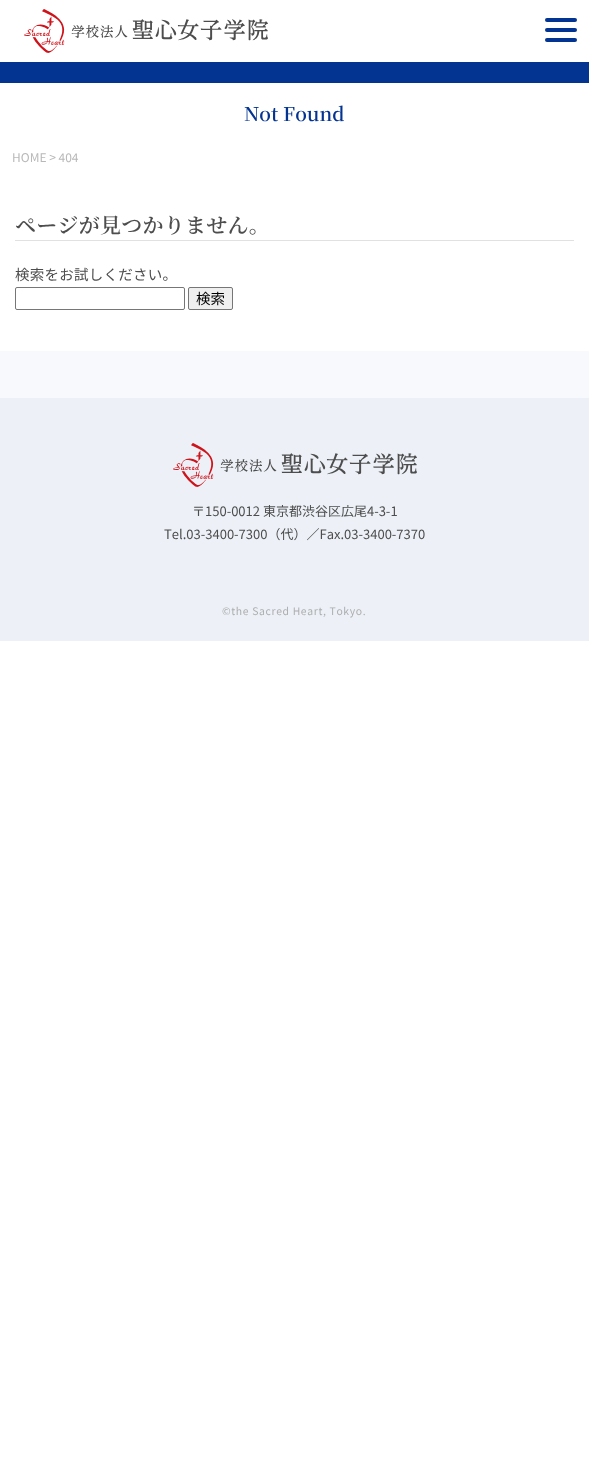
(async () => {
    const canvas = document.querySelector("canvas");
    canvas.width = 589;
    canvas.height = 1459;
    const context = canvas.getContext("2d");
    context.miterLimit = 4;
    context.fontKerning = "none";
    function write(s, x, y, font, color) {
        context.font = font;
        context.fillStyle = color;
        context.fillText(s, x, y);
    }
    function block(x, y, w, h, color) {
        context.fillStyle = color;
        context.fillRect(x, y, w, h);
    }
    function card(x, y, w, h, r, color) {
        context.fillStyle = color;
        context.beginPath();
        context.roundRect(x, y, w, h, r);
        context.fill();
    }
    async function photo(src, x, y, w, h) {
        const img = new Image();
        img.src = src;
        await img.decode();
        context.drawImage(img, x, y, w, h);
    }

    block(0, 0, 589, 1459, "rgb(255, 255, 255)");
    await photo("media/1.png", 24, 9, 244, 44);
    card(545, 28, 32, 4, 2, "rgb(4, 52, 145)");
    card(545, 18, 32, 4, 2, "rgb(4, 52, 145)");
    card(545, 38, 32, 4, 2, "rgb(4, 52, 145)");
    block(0, 62, 589, 21, "rgb(4, 52, 145)");
    write("Not Found", 244, 121, "600 19px Noto Serif JP", "rgb(4, 52, 145)");
    write("HOME > 404", 12, 162, "12px Noto Sans JP", "rgb(184, 184, 184)");
    block(15, 240, 559, 1, "rgb(225, 225, 225)");
    context.letterSpacing = "0.25px";
    write("ページが見つかりません。", 15, 233, "600 21px Noto Serif JP", "rgb(77, 77, 77)");
    write("検索をお試しください。", 15, 280, "14.5px Noto Sans JP", "rgb(77, 77, 77)");
    context.beginPath();
    context.roundRect(15.5, 287.5, 169, 22, 1.5);
    context.strokeStyle = "rgb(118, 118, 118)";
    context.stroke();
    context.fillStyle = "rgb(239, 239, 239)";
    context.beginPath();
    context.roundRect(188.5, 287.5, 44, 22, 1.5);
    context.fill();
    context.stroke();
    context.letterSpacing = "0px";
    write("検索", 196, 304, "14.5px Noto Sans JP", "rgb(0, 0, 0)");
    block(0, 351, 589, 47, "rgb(247, 249, 252)");
    block(0, 398, 589, 243, "rgb(237, 241, 247)");
    await photo("media/2.png", 173, 443, 244, 44);
    write("〒150-0012 東京都渋谷区広尾4-3-1", 192, 516, "13px Noto Sans JP", "rgb(77, 77, 77)");
    write("Tel.03-3400-7300（代）／Fax.03-3400-7370", 164, 539, "13px Noto Sans JP", "rgb(77, 77, 77)");
    context.letterSpacing = "0.65px";
    write("©the Sacred Heart, Tokyo.", 222, 615, "10.4px Noto Sans JP", "rgb(173, 173, 173)");
})();
